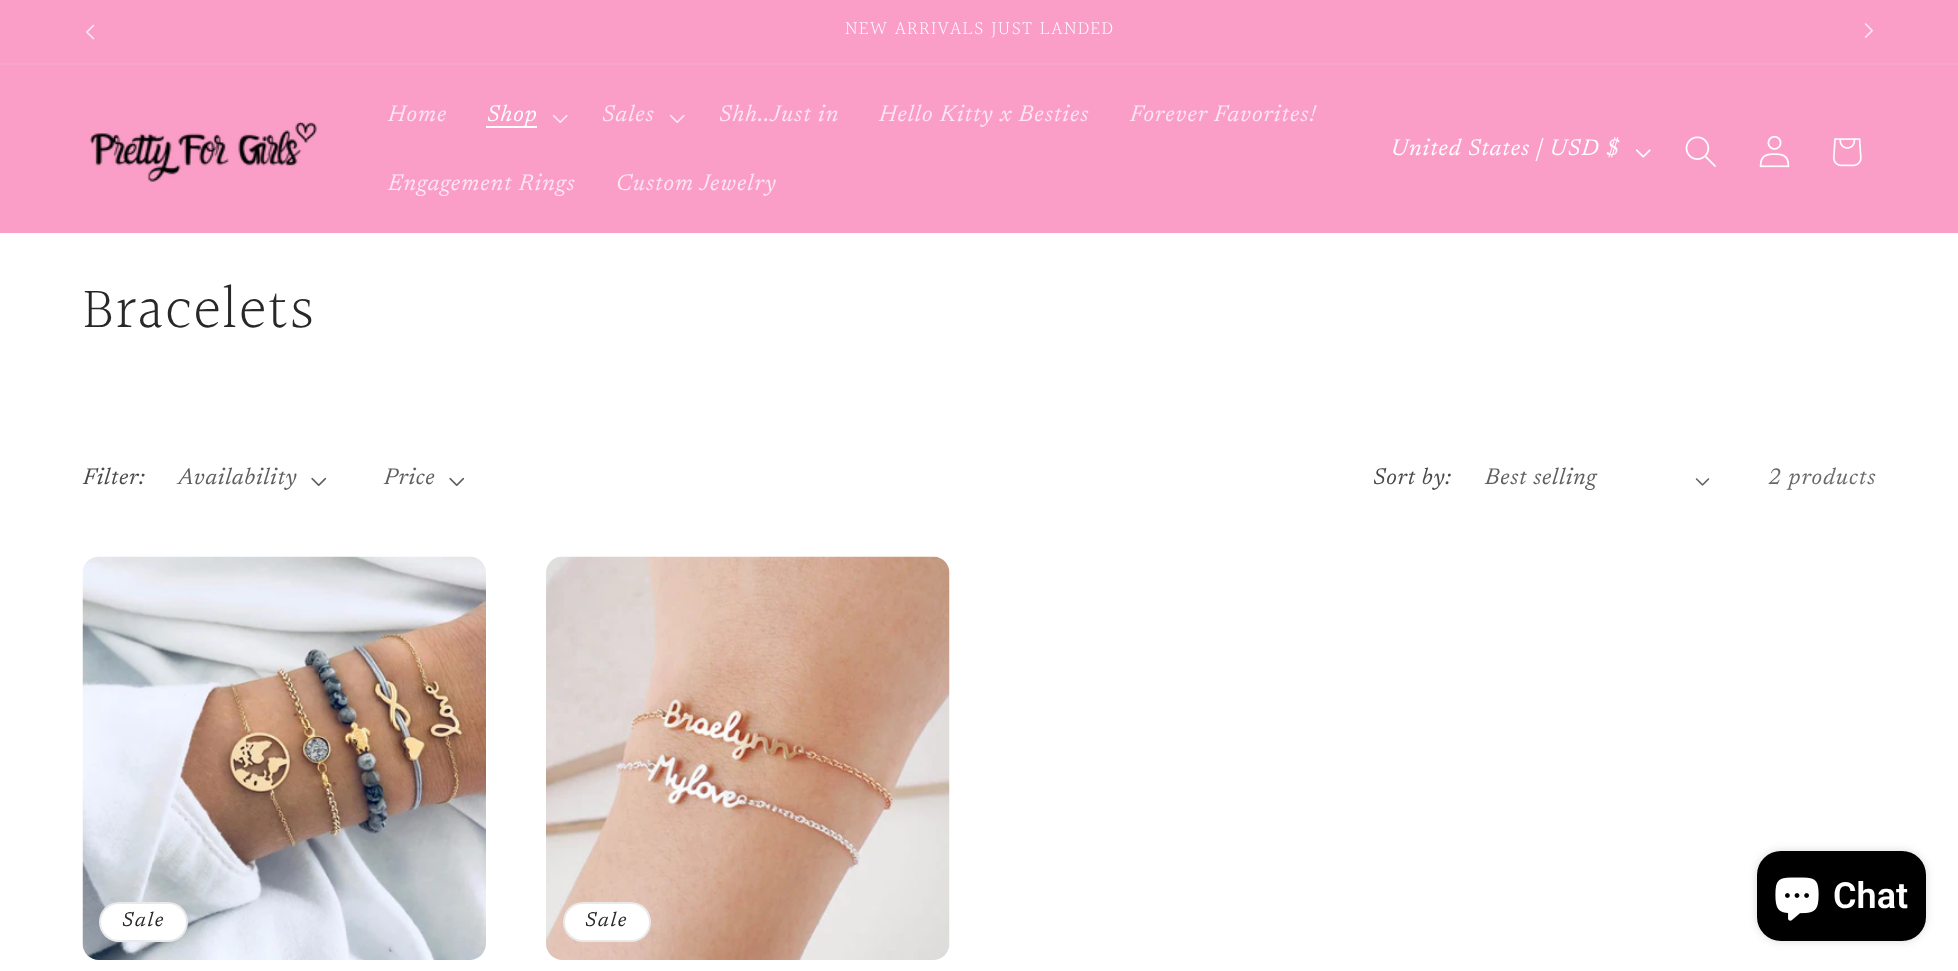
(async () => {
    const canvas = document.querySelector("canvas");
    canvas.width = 1958;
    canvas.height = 971;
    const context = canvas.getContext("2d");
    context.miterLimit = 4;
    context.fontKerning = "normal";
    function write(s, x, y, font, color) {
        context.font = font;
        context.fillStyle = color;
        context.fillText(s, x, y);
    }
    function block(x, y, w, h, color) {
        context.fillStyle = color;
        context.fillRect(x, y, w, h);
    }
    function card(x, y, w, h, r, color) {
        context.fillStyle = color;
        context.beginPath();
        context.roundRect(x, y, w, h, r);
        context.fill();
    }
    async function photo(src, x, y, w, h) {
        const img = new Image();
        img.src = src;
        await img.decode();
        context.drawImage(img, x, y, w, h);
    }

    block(0, 0, 1958, 971, "rgb(255, 255, 255)");
    block(0, 0, 1958, 63, "rgb(250, 158, 200)");
    block(0, 63, 1958, 2, "rgb(250, 166, 204)");
    await photo("media/1.png", 86, 24, 9, 16);
    context.letterSpacing = "1.65px";
    write("NEW ARRIVALS JUST LANDED", 845, 35, "300 19.5px Halant", "rgb(254, 254, 254)");
    await photo("media/2.png", 1864, 23, 9, 15);
    block(0, 65, 1958, 168, "rgb(250, 158, 200)");
    await photo("media/3.png", 89, 121, 228, 61);
    context.letterSpacing = "1px";
    write("Home", 388, 121, "italic 23px Newsreader", "rgb(253, 230, 241)");
    block(486, 126, 51, 2, "rgb(254, 254, 254)");
    write("Shop", 487, 121, "italic 23px Newsreader", "rgb(254, 254, 254)");
    await photo("media/4.png", 552, 114, 16, 9);
    write("Sales", 602, 121, "italic 23px Newsreader", "rgb(253, 230, 241)");
    await photo("media/4.png", 669, 114, 16, 9);
    write("Shh..Just in", 719, 121, "italic 23px Newsreader", "rgb(253, 230, 241)");
    write("Hello Kitty x Besties", 879, 121, "italic 23px Newsreader", "rgb(253, 230, 241)");
    write("Forever Favorites!", 1130, 121, "italic 23px Newsreader", "rgb(253, 230, 241)");
    write("Engagement Rings", 388, 190, "italic 23px Newsreader", "rgb(253, 230, 241)");
    write("Custom Jewelry", 616, 190, "italic 23px Newsreader", "rgb(253, 230, 241)");
    write("United States | USD $", 1391, 155, "italic 23px Newsreader", "rgb(254, 254, 254)");
    await photo("media/5.png", 1635, 149, 16, 9);
    await photo("media/6.png", 1685, 136, 31, 31);
    await photo("media/7.png", 1759, 135, 31, 33);
    await photo("media/8.png", 1833, 138, 29, 29);
    write("Bracelets", 83, 330, "300 60px Halant", "rgb(39, 40, 42)");
    context.letterSpacing = "0.7px";
    write("Filter:", 83, 484, "italic 23px Newsreader", "rgb(71, 72, 74)");
    write("Availability", 178, 484, "italic 23px Newsreader", "rgb(93, 94, 95)");
    await photo("media/9.png", 311, 477, 16, 9);
    write("Price", 384, 484, "italic 23px Newsreader", "rgb(93, 94, 95)");
    await photo("media/9.png", 449, 477, 16, 9);
    write("Sort by:", 1373, 484, "italic 23px Newsreader", "rgb(71, 72, 74)");
    write("Best selling", 1485, 484, "italic 23px Newsreader", "rgb(93, 94, 95)");
    await photo("media/10.png", 1695, 478, 15, 8);
    context.letterSpacing = "1px";
    write("2 products", 1768, 484, "italic 23px Newsreader", "rgb(104, 105, 106)");
    await photo("media/11.png", 82, 556, 404, 404);
    card(99, 902, 89, 40, 20, "rgb(255, 255, 255)");
    context.beginPath();
    context.roundRect(100, 903, 87, 38, 19);
    context.strokeStyle = "rgba(39, 40, 42, 0.1)";
    context.lineWidth = 2;
    context.stroke();
    context.letterSpacing = "1.65px";
    write("Sale", 122, 926, "italic 20px 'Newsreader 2'", "rgb(39, 40, 42)");
    await photo("media/12.png", 546, 556, 404, 404);
    card(563, 902, 88, 40, 20, "rgb(255, 255, 255)");
    context.beginPath();
    context.roundRect(564, 903, 86, 38, 19);
    context.stroke();
    write("Sale", 585, 926, "italic 20px 'Newsreader 2'", "rgb(39, 40, 42)");
    context.fillStyle = "rgba(0, 0, 0, 0.15)";
    context.filter = "blur(4px)";
    context.beginPath();
    context.roundRect(1757, 851, 169, 90, 24);
    context.fill();
    context.filter = "none";
    card(1757, 851, 169, 90, 24, "rgb(0, 0, 0)");
    await photo("media/13.png", 1775, 877, 44, 44);
    context.letterSpacing = "0px";
    write("Chat", 1833, 908, "600 36px Roboto", "rgb(254, 254, 254)");
})();
